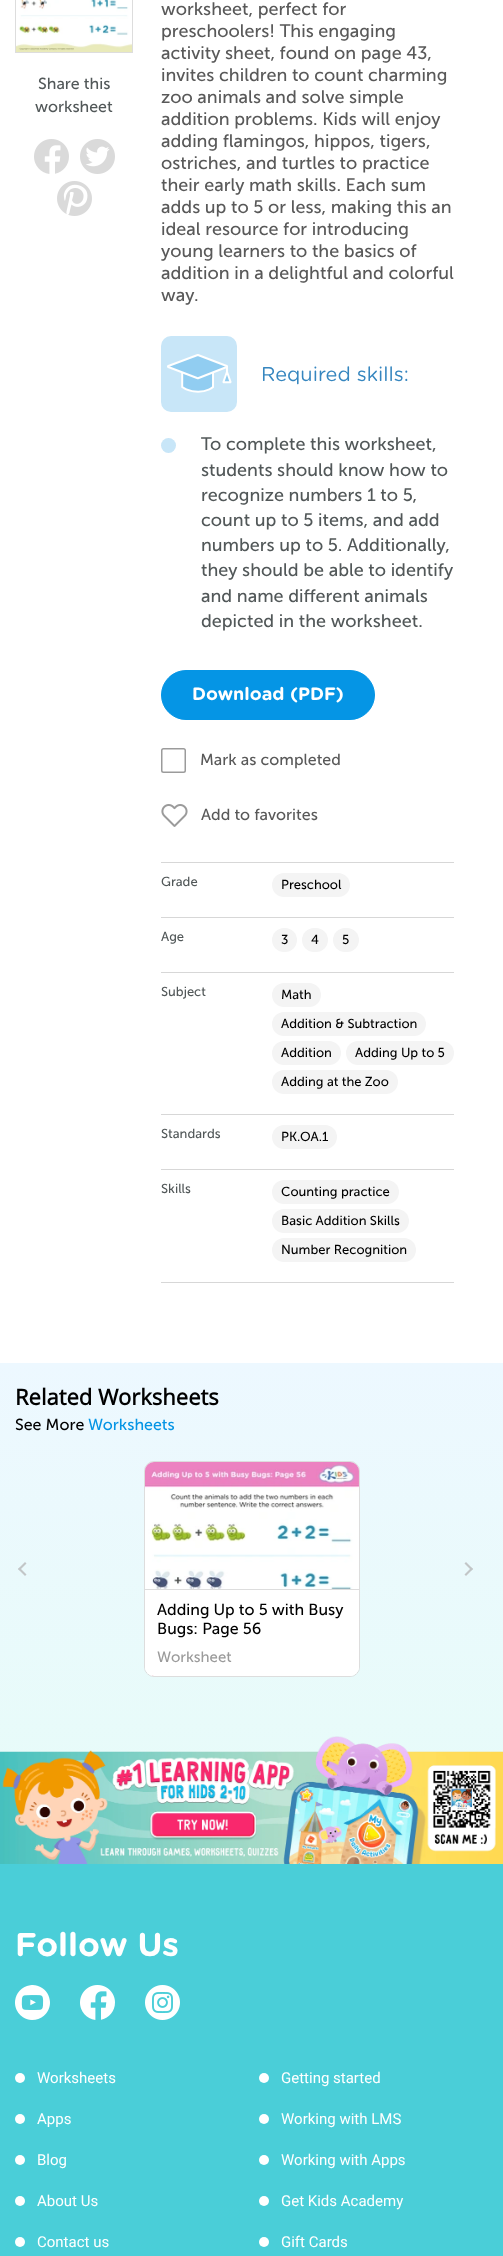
(async () => {
    const canvas = document.querySelector("canvas");
    canvas.width = 503;
    canvas.height = 2256;
    const context = canvas.getContext("2d");
    context.miterLimit = 4;
    context.fontKerning = "normal";
    function write(s, x, y, font, color) {
        context.font = font;
        context.fillStyle = color;
        context.fillText(s, x, y);
    }
    function block(x, y, w, h, color) {
        context.fillStyle = color;
        context.fillRect(x, y, w, h);
    }
    function card(x, y, w, h, r, color) {
        context.fillStyle = color;
        context.beginPath();
        context.roundRect(x, y, w, h, r);
        context.fill();
    }
    async function photo(src, x, y, w, h) {
        const img = new Image();
        img.src = src;
        await img.decode();
        context.drawImage(img, x, y, w, h);
    }
    let gradient;

    block(0, 0, 503, 2256, "rgb(255, 255, 255)");
    context.strokeStyle = "rgb(221, 221, 221)";
    context.strokeRect(15.5, -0.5, 117, 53);
    await photo("media/1.png", 16, 0, 116, 52);
    write("Share this", 38, 89, "16px Museo Sans", "rgb(82, 88, 89)");
    write("worksheet", 35, 112, "16px Museo Sans", "rgb(82, 88, 89)");
    await photo("media/2.png", 34, 139, 35, 35);
    await photo("media/3.png", 80, 139, 35, 35);
    await photo("media/4.png", 57, 181, 35, 35);
    write("worksheet, perfect for", 161, 15, "18px Museo Sans", "rgb(89, 89, 89)");
    write("preschoolers! This engaging", 161, 37, "18px Museo Sans", "rgb(89, 89, 89)");
    write("activity sheet, found on page 43,", 161, 59, "18px Museo Sans", "rgb(89, 89, 89)");
    write("invites children to count charming", 161, 81, "18px Museo Sans", "rgb(89, 89, 89)");
    write("zoo animals and solve simple", 161, 103, "18px Museo Sans", "rgb(89, 89, 89)");
    write("addition problems. Kids will enjoy", 161, 125, "18px Museo Sans", "rgb(89, 89, 89)");
    write("adding flamingos, hippos, tigers,", 161, 147, "18px Museo Sans", "rgb(89, 89, 89)");
    write("ostriches, and turtles to practice", 161, 169, "18px Museo Sans", "rgb(89, 89, 89)");
    write("their early math skills. Each sum", 161, 191, "18px Museo Sans", "rgb(89, 89, 89)");
    write("adds up to 5 or less, making this an", 161, 213, "18px Museo Sans", "rgb(89, 89, 89)");
    write("ideal resource for introducing", 161, 235, "18px Museo Sans", "rgb(89, 89, 89)");
    write("young learners to the basics of", 161, 257, "18px Museo Sans", "rgb(89, 89, 89)");
    write("addition in a delightful and colorful", 161, 279, "18px Museo Sans", "rgb(89, 89, 89)");
    write("way.", 161, 301, "18px Museo Sans", "rgb(89, 89, 89)");
    await photo("media/5.png", 161, 336, 76, 76);
    write("Required skills:", 261, 381, "20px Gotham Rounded", "rgb(54, 134, 191)");
    context.fillStyle = "rgb(200, 230, 248)";
    context.beginPath();
    context.arc(168.5, 445.5, 7.5, 0, Math.PI * 2);
    context.fill();
    write("To complete this worksheet,", 201, 450, "18px Museo Sans", "rgb(82, 88, 89)");
    write("students should know how to", 201, 476, "18px Museo Sans", "rgb(82, 88, 89)");
    write("recognize numbers 1 to 5,", 201, 501, "18px Museo Sans", "rgb(82, 88, 89)");
    write("count up to 5 items, and add", 201, 526, "18px Museo Sans", "rgb(82, 88, 89)");
    write("numbers up to 5. Additionally,", 201, 551, "18px Museo Sans", "rgb(82, 88, 89)");
    write("they should be able to identify", 201, 576, "18px Museo Sans", "rgb(82, 88, 89)");
    write("and name different animals", 201, 602, "18px Museo Sans", "rgb(82, 88, 89)");
    write("depicted in the worksheet.", 201, 627, "18px Museo Sans", "rgb(82, 88, 89)");
    context.fillStyle = "rgb(5, 149, 229)";
    context.beginPath();
    context.roundRect(161.5, 670.5, 213, 49, 24.5);
    context.fill();
    context.strokeStyle = "rgb(5, 149, 229)";
    context.stroke();
    write("Download (PDF)", 192, 700, "bold 18px Gotham Rounded", "rgb(255, 255, 255)");
    context.beginPath();
    context.roundRect(161.75, 748.75, 23.5, 23.5, 1.75);
    context.strokeStyle = "rgb(155, 155, 155)";
    context.lineWidth = 1.5;
    context.stroke();
    write("Mark as completed", 200, 765, "16px Museo Sans", "rgb(89, 89, 89)");
    await photo("media/6.png", 161, 804, 27, 23);
    write("Add to favorites", 201, 820, "16px Museo Sans", "rgb(89, 89, 89)");
    block(161, 862, 293, 1, "rgb(215, 215, 215)");
    block(161, 917, 293, 1, "rgb(215, 215, 215)");
    write("Grade", 161, 886, "13px Museo Sans", "rgb(82, 88, 89)");
    card(272, 873, 78, 24, 12, "rgb(244, 244, 244)");
    write("Preschool", 281, 889, "13px Museo Sans", "rgb(0, 0, 0)");
    block(161, 972, 293, 1, "rgb(215, 215, 215)");
    write("Age", 161, 941, "13px Museo Sans", "rgb(82, 88, 89)");
    card(272, 928, 25, 24, 12, "rgb(244, 244, 244)");
    write("3", 281, 944, "13px Museo Sans", "rgb(0, 0, 0)");
    card(302, 928, 26, 24, 12, "rgb(244, 244, 244)");
    write("4", 311, 944, "13px Museo Sans", "rgb(0, 0, 0)");
    card(333, 928, 26, 24, 12, "rgb(244, 244, 244)");
    write("5", 342, 944, "13px Museo Sans", "rgb(0, 0, 0)");
    block(161, 1114, 293, 1, "rgb(215, 215, 215)");
    write("Subject", 161, 996, "13px Museo Sans", "rgb(82, 88, 89)");
    card(272, 983, 49, 24, 12, "rgb(244, 244, 244)");
    write("Math", 281, 999, "13px Museo Sans", "rgb(0, 0, 0)");
    card(272, 1012, 154, 24, 12, "rgb(244, 244, 244)");
    write("Addition & Subtraction", 281, 1028, "13px Museo Sans", "rgb(0, 0, 0)");
    card(272, 1041, 69, 24, 12, "rgb(244, 244, 244)");
    write("Addition", 281, 1057, "13px Museo Sans", "rgb(0, 0, 0)");
    card(346, 1041, 108, 24, 12, "rgb(244, 244, 244)");
    write("Adding Up to 5", 355, 1057, "13px Museo Sans", "rgb(0, 0, 0)");
    card(272, 1070, 126, 24, 12, "rgb(244, 244, 244)");
    write("Adding at the Zoo", 281, 1086, "13px Museo Sans", "rgb(0, 0, 0)");
    block(161, 1169, 293, 1, "rgb(215, 215, 215)");
    write("Standards", 161, 1138, "13px Museo Sans", "rgb(82, 88, 89)");
    card(272, 1125, 65, 24, 12, "rgb(244, 244, 244)");
    write("PK.OA.1", 281, 1141, "13px Museo Sans", "rgb(0, 0, 0)");
    block(161, 1282, 293, 1, "rgb(215, 215, 215)");
    write("Skills", 161, 1193, "13px Museo Sans", "rgb(82, 88, 89)");
    card(272, 1180, 127, 24, 12, "rgb(244, 244, 244)");
    write("Counting practice", 281, 1196, "13px Museo Sans", "rgb(0, 0, 0)");
    card(272, 1209, 137, 24, 12, "rgb(244, 244, 244)");
    write("Basic Addition Skills", 281, 1225, "13px Museo Sans", "rgb(0, 0, 0)");
    card(272, 1238, 144, 24, 12, "rgb(244, 244, 244)");
    write("Number Recognition", 281, 1254, "13px Museo Sans", "rgb(0, 0, 0)");
    gradient = context.createLinearGradient(251, 1363, 252, 1864);
    gradient.addColorStop(0, "rgb(237, 248, 255)");
    gradient.addColorStop(1, "rgb(230, 252, 248)");
    context.fillStyle = gradient;
    context.fillRect(0, 1363, 503, 472);
    write("Related Worksheets", 15, 1405, "bold 22px Open Sans", "rgb(0, 0, 0)");
    write("See More", 15, 1430, "16px Museo Sans", "rgb(0, 0, 0)");
    write("Worksheets", 88, 1430, "16px Museo Sans", "rgb(5, 149, 229)");
    context.fillStyle = "rgb(194, 198, 199)";
    context.beginPath();
    context.moveTo(18, 1569);
    context.lineTo(25, 1562);
    context.lineTo(26.5, 1563.5);
    context.lineTo(19.5, 1570.5);
    context.closePath();
    context.fill();
    context.beginPath();
    context.moveTo(18, 1569);
    context.lineTo(19.5, 1567.5);
    context.lineTo(26.5, 1574.5);
    context.lineTo(25, 1576);
    context.closePath();
    context.fill();
    context.beginPath();
    context.moveTo(473, 1569);
    context.lineTo(466, 1576);
    context.lineTo(464.5, 1574.5);
    context.lineTo(471.5, 1567.5);
    context.closePath();
    context.fill();
    context.beginPath();
    context.moveTo(473, 1569);
    context.lineTo(471.5, 1570.5);
    context.lineTo(464.5, 1563.5);
    context.lineTo(466, 1562);
    context.closePath();
    context.fill();
    context.beginPath();
    context.roundRect(144.5, 1461.5, 215, 215, 9.5);
    context.strokeStyle = "rgb(221, 221, 221)";
    context.lineWidth = 1;
    context.stroke();
    await photo("media/7.png", 145, 1462, 214, 214);
    context.fillStyle = "rgb(255, 255, 255)";
    context.beginPath();
    context.roundRect(145, 1589, 214, 87, [0, 0, 9, 9]);
    context.fill();
    block(145, 1589, 214, 1, "rgb(221, 221, 221)");
    write("Adding Up to 5 with Busy", 157, 1615, "16px Museo Sans", "rgb(0, 0, 0)");
    write("Bugs: Page 56", 157, 1634, "16px Museo Sans", "rgb(0, 0, 0)");
    write("Worksheet", 157, 1662, "15px Museo Sans", "rgb(155, 155, 155)");
    await photo("media/8.png", 0, 1736, 503, 128);
    block(0, 1864, 503, 392, "rgb(74, 206, 216)");
    write("Follow Us", 15, 1956, "bold 33px Gotham Rounded", "rgb(255, 255, 255)");
    await photo("media/9.png", 15, 1985, 35, 35);
    await photo("media/10.png", 80, 1985, 35, 35);
    await photo("media/11.png", 145, 1985, 35, 35);
    context.beginPath();
    context.arc(20, 2078, 5, 0, Math.PI * 2);
    context.fill();
    write("Worksheets", 37, 2083, "15px Roboto", "rgb(255, 255, 255)");
    context.beginPath();
    context.arc(264, 2078, 5, 0, Math.PI * 2);
    context.fill();
    write("Getting started", 281, 2083, "15px Roboto", "rgb(255, 255, 255)");
    context.beginPath();
    context.arc(20, 2119, 5, 0, Math.PI * 2);
    context.fill();
    write("Apps", 37, 2124, "15px Roboto", "rgb(255, 255, 255)");
    context.beginPath();
    context.arc(264, 2119, 5, 0, Math.PI * 2);
    context.fill();
    write("Working with LMS", 281, 2124, "15px Roboto", "rgb(255, 255, 255)");
    context.beginPath();
    context.arc(20, 2160, 5, 0, Math.PI * 2);
    context.fill();
    write("Blog", 37, 2165, "15px Roboto", "rgb(255, 255, 255)");
    context.beginPath();
    context.arc(264, 2160, 5, 0, Math.PI * 2);
    context.fill();
    write("Working with Apps", 281, 2165, "15px Roboto", "rgb(255, 255, 255)");
    context.beginPath();
    context.arc(20, 2201, 5, 0, Math.PI * 2);
    context.fill();
    write("About Us", 37, 2206, "15px Roboto", "rgb(255, 255, 255)");
    context.beginPath();
    context.arc(264, 2201, 5, 0, Math.PI * 2);
    context.fill();
    write("Get Kids Academy", 281, 2206, "15px Roboto", "rgb(255, 255, 255)");
    context.beginPath();
    context.arc(20, 2242, 5, 0, Math.PI * 2);
    context.fill();
    write("Contact us", 37, 2247, "15px Roboto", "rgb(255, 255, 255)");
    context.beginPath();
    context.arc(264, 2242, 5, 0, Math.PI * 2);
    context.fill();
    write("Gift Cards", 281, 2247, "15px Roboto", "rgb(255, 255, 255)");
})();
